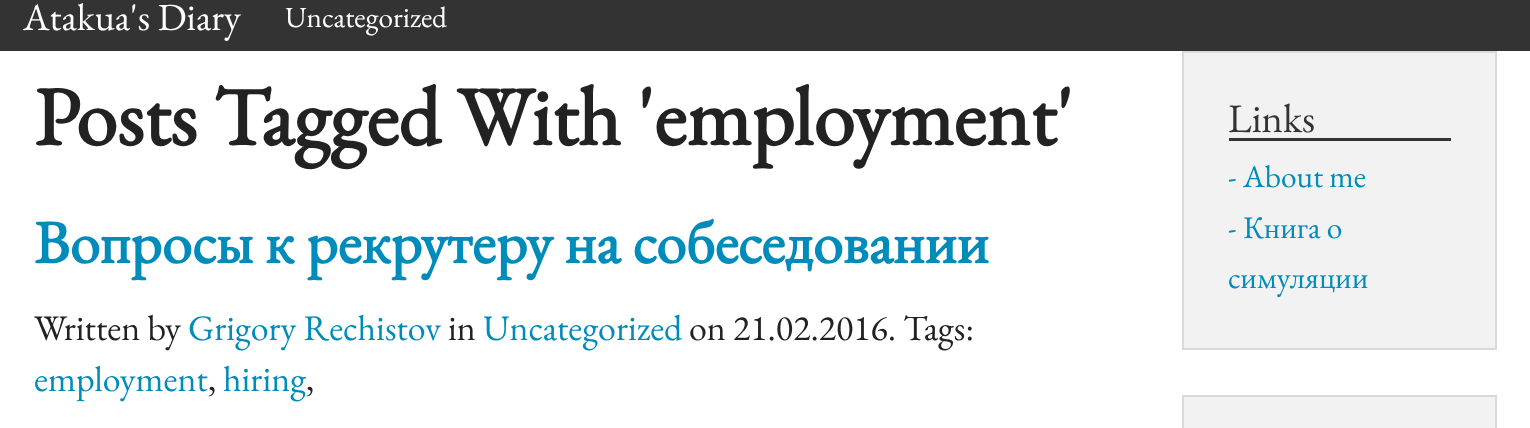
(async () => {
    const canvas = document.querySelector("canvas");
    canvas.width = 1530;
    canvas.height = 428;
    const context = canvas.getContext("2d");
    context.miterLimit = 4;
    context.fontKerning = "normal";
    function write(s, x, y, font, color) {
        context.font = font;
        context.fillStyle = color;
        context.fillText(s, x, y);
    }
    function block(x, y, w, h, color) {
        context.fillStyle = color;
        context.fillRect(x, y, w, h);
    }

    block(0, 0, 1530, 428, "rgb(255, 255, 255)");
    block(0, 0, 1530, 51, "rgb(51, 51, 51)");
    write("Atakua's Diary", 23, 30, "38.25px EB Garamond", "rgb(255, 255, 255)");
    write("Uncategorized", 285, 27, "29.25px EB Garamond", "rgb(255, 255, 255)");
    write("Posts Tagged With 'employment'", 34, 145, "bold 83.25px EB Garamond", "rgb(34, 34, 34)");
    write("Вопросы к рекрутеру на собеседовании", 34, 263, "bold 60.75px EB Garamond", "rgb(0, 140, 186)");
    write("Written by", 34, 340, "36px EB Garamond", "rgb(34, 34, 34)");
    write("Grigory Rechistov", 188, 340, "36px EB Garamond", "rgb(0, 140, 186)");
    write("in", 448, 340, "36px EB Garamond", "rgb(34, 34, 34)");
    write("Uncategorized", 483, 340, "36px EB Garamond", "rgb(0, 140, 186)");
    write("on 21.02.2016. Tags:", 689, 340, "36px EB Garamond", "rgb(34, 34, 34)");
    write("employment", 34, 391, "36px EB Garamond", "rgb(0, 140, 186)");
    write(",", 208, 391, "36px EB Garamond", "rgb(34, 34, 34)");
    write("hiring", 223, 391, "36px EB Garamond", "rgb(0, 140, 186)");
    write(",", 306, 391, "36px EB Garamond", "rgb(34, 34, 34)");
    context.fillStyle = "rgb(242, 242, 242)";
    context.beginPath();
    context.rect(1183, 52, 313, 297);
    context.fill();
    context.strokeStyle = "rgb(217, 217, 217)";
    context.lineWidth = 2;
    context.stroke();
    block(1229, 138, 222, 3, "rgb(51, 51, 51)");
    write("Links", 1228, 132, "40.5px EB Garamond", "rgb(51, 51, 51)");
    write("- About me", 1228, 187, "31.5px EB Garamond", "rgb(0, 140, 186)");
    write("- Книга о", 1228, 238, "31.5px EB Garamond", "rgb(0, 140, 186)");
    write("симуляции", 1228, 288, "31.5px EB Garamond", "rgb(0, 140, 186)");
    context.fillStyle = "rgb(242, 242, 242)";
    context.beginPath();
    context.rect(1183, 396, 313, 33);
    context.fill();
    context.stroke();
})();
